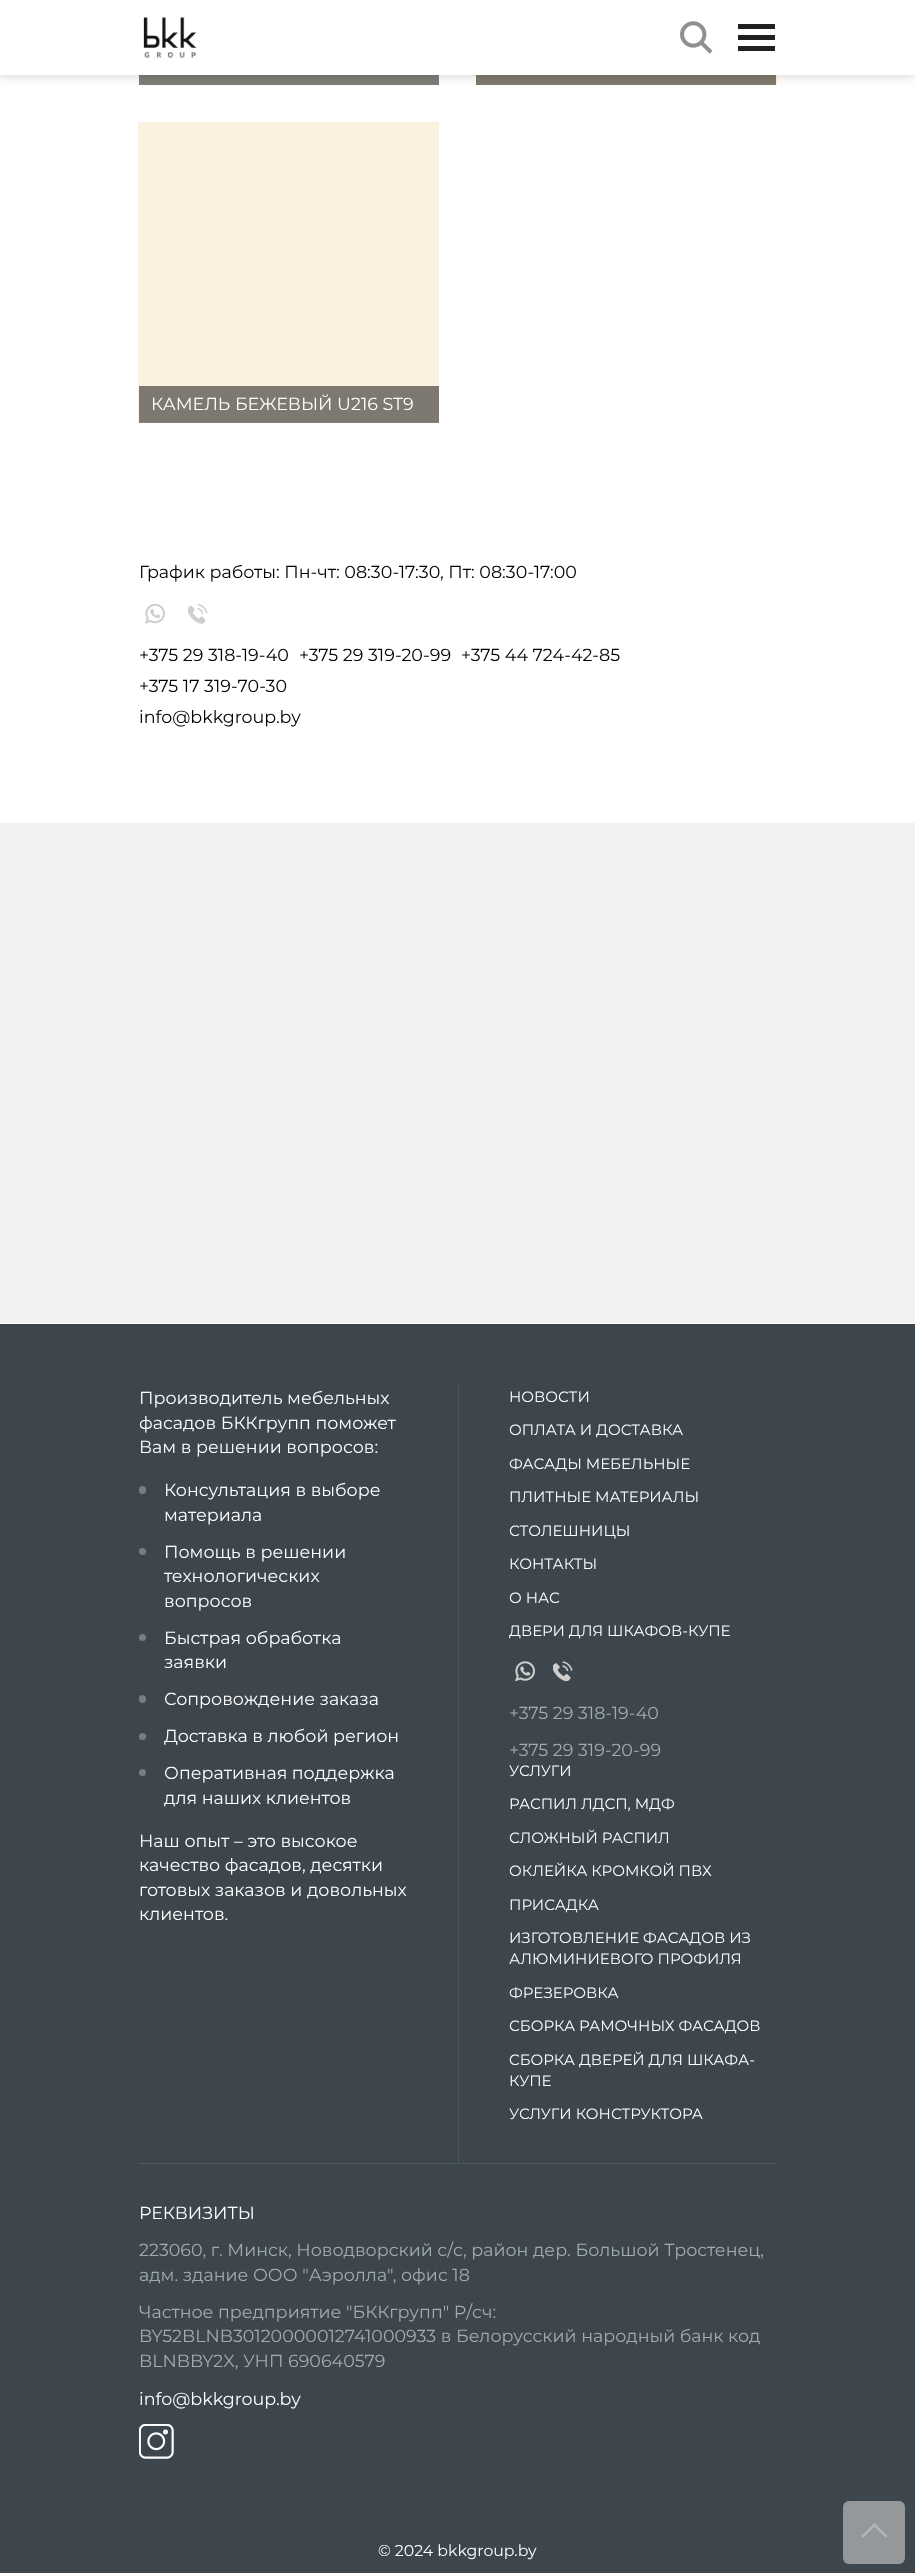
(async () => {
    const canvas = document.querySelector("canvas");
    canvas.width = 915;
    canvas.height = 2573;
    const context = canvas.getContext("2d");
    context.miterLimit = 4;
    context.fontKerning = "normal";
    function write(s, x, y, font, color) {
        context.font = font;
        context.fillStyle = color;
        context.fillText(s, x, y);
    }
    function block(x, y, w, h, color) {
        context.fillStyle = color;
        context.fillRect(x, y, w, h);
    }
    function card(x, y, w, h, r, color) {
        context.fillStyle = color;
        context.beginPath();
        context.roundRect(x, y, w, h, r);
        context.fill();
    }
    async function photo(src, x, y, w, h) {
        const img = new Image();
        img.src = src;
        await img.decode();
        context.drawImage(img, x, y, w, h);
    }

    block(0, 0, 915, 2573, "rgb(255, 255, 255)");
    block(139, 422, 300, 1, "rgb(128, 128, 128)");
    block(139, 75, 300, 10, "rgb(126, 126, 121)");
    block(476, 75, 300, 10, "rgb(128, 122, 110)");
    block(776, 75, 1, 10, "rgb(255, 243, 219)");
    context.fillStyle = "rgba(0, 0, 0, 0.2)";
    context.filter = "blur(6px)";
    context.beginPath();
    context.rect(-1, -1, 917, 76);
    context.fill();
    context.filter = "none";
    block(0, 0, 915, 75, "rgb(255, 255, 255)");
    await photo("media/1.png", 143, 16, 54, 43);
    await photo("media/2.png", 680, 21, 33, 33);
    block(738, 24, 37, 5, "rgb(32, 32, 32)");
    block(738, 35, 37, 5, "rgb(32, 32, 32)");
    block(738, 46, 37, 5, "rgb(32, 32, 32)");
    block(138, 122, 301, 300, "rgb(250, 241, 224)");
    block(139, 386, 300, 36, "rgb(125, 121, 112)");
    write("КАМЕЛЬ БЕЖЕВЫЙ U216 ST9", 151, 410, "100 17.5px Montserrat", "rgb(255, 255, 255)");
    write("График работы: Пн-чт: 08:30-17:30, Пт: 08:30-17:00", 139, 578, "100 17.5px Montserrat", "rgb(0, 0, 0)");
    await photo("media/3.png", 145, 604, 20, 20);
    await photo("media/4.png", 188, 604, 20, 20);
    write("+375 29 318-19-40", 139, 661, "100 17.5px Montserrat", "rgb(0, 0, 0)");
    write("+375 29 319-20-99", 299, 661, "100 17.5px Montserrat", "rgb(0, 0, 0)");
    write("+375 44 724-42-85", 461, 661, "100 17.5px Montserrat", "rgb(0, 0, 0)");
    write("+375 17 319-70-30", 139, 692, "100 17.5px Montserrat", "rgb(0, 0, 0)");
    write("info@bkkgroup.by", 139, 723, "100 17.5px Montserrat", "rgb(0, 0, 0)");
    block(0, 823, 915, 500, "rgb(241, 241, 241)");
    block(0, 1324, 915, 1249, "rgb(61, 70, 77)");
    write("Производитель мебельных", 139, 1404, "100 17.5px Montserrat", "rgb(255, 255, 255)");
    write("фасадов БККгрупп поможет", 139, 1429, "100 17.5px Montserrat", "rgb(255, 255, 255)");
    write("Вам в решении вопросов:", 139, 1453, "100 17.5px Montserrat", "rgb(255, 255, 255)");
    card(139, 1486, 7, 8, 3.5, "rgb(119, 126, 130)");
    write("Консультация в выборе", 164, 1496, "100 17.5px Montserrat", "rgb(255, 255, 255)");
    write("материала", 164, 1521, "100 17.5px Montserrat", "rgb(255, 255, 255)");
    context.fillStyle = "rgb(119, 126, 130)";
    context.beginPath();
    context.arc(142.5, 1551.5, 3.5, 0, Math.PI * 2);
    context.fill();
    write("Помощь в решении", 164, 1558, "100 17.5px Montserrat", "rgb(255, 255, 255)");
    write("технологических", 164, 1582, "100 17.5px Montserrat", "rgb(255, 255, 255)");
    write("вопросов", 164, 1607, "100 17.5px Montserrat", "rgb(255, 255, 255)");
    context.fillStyle = "rgb(119, 126, 130)";
    context.beginPath();
    context.arc(142.5, 1637.5, 3.5, 0, Math.PI * 2);
    context.fill();
    write("Быстрая обработка", 164, 1644, "100 17.5px Montserrat", "rgb(255, 255, 255)");
    write("заявки", 164, 1668, "100 17.5px Montserrat", "rgb(255, 255, 255)");
    card(139, 1695, 7, 8, 3.5, "rgb(119, 126, 130)");
    write("Сопровождение заказа", 164, 1705, "100 17.5px Montserrat", "rgb(255, 255, 255)");
    context.fillStyle = "rgb(119, 126, 130)";
    context.beginPath();
    context.arc(142.5, 1736.5, 3.5, 0, Math.PI * 2);
    context.fill();
    write("Доставка в любой регион", 164, 1742, "100 17.5px Montserrat", "rgb(255, 255, 255)");
    context.fillStyle = "rgb(119, 126, 130)";
    context.beginPath();
    context.arc(142.5, 1772.5, 3.5, 0, Math.PI * 2);
    context.fill();
    write("Оперативная поддержка", 164, 1779, "100 17.5px Montserrat", "rgb(255, 255, 255)");
    write("для наших клиентов", 164, 1804, "100 17.5px Montserrat", "rgb(255, 255, 255)");
    write("Наш опыт – это высокое", 139, 1847, "100 17.5px Montserrat", "rgb(255, 255, 255)");
    write("качество фасадов, десятки", 139, 1871, "100 17.5px Montserrat", "rgb(255, 255, 255)");
    write("готовых заказов и довольных", 139, 1896, "100 17.5px Montserrat", "rgb(255, 255, 255)");
    write("клиентов.", 139, 1920, "100 17.5px Montserrat", "rgb(255, 255, 255)");
    block(458, 1386, 1, 777, "rgb(76, 88, 96)");
    write("НОВОСТИ", 509, 1402, "100 15px Montserrat", "rgb(255, 255, 255)");
    write("ОПЛАТА И ДОСТАВКА", 509, 1435, "100 15px Montserrat", "rgb(255, 255, 255)");
    write("ФАСАДЫ МЕБЕЛЬНЫЕ", 509, 1469, "100 15px Montserrat", "rgb(255, 255, 255)");
    write("ПЛИТНЫЕ МАТЕРИАЛЫ", 509, 1502, "100 15px Montserrat", "rgb(255, 255, 255)");
    write("СТОЛЕШНИЦЫ", 509, 1536, "100 15px Montserrat", "rgb(255, 255, 255)");
    write("КОНТАКТЫ", 509, 1569, "100 15px Montserrat", "rgb(255, 255, 255)");
    write("О НАС", 509, 1603, "100 15px Montserrat", "rgb(255, 255, 255)");
    write("ДВЕРИ ДЛЯ ШКАФОВ-КУПЕ", 509, 1636, "100 15px Montserrat", "rgb(255, 255, 255)");
    await photo("media/5.png", 515, 1661, 20, 20);
    await photo("media/6.png", 553, 1661, 20, 20);
    write("+375 29 318-19-40", 509, 1719, "100 17.5px Montserrat", "rgb(161, 171, 178)");
    write("+375 29 319-20-99", 509, 1756, "100 17.5px Montserrat", "rgb(161, 171, 178)");
    write("УСЛУГИ", 509, 1776, "100 15px Montserrat", "rgb(255, 255, 255)");
    write("РАСПИЛ ЛДСП, МДФ", 509, 1809, "100 15px Montserrat", "rgb(255, 255, 255)");
    write("СЛОЖНЫЙ РАСПИЛ", 509, 1843, "100 15px Montserrat", "rgb(255, 255, 255)");
    write("ОКЛЕЙКА КРОМКОЙ ПВХ", 509, 1876, "100 15px Montserrat", "rgb(255, 255, 255)");
    write("ПРИСАДКА", 509, 1910, "100 15px Montserrat", "rgb(255, 255, 255)");
    write("ИЗГОТОВЛЕНИЕ ФАСАДОВ ИЗ", 509, 1943, "100 15px Montserrat", "rgb(255, 255, 255)");
    write("АЛЮМИНИЕВОГО ПРОФИЛЯ", 509, 1964, "100 15px Montserrat", "rgb(255, 255, 255)");
    write("ФРЕЗЕРОВКА", 509, 1998, "100 15px Montserrat", "rgb(255, 255, 255)");
    write("СБОРКА РАМОЧНЫХ ФАСАДОВ", 509, 2031, "100 15px Montserrat", "rgb(255, 255, 255)");
    write("CБОРКА ДВЕРЕЙ ДЛЯ ШКАФА-", 509, 2065, "100 15px Montserrat", "rgb(255, 255, 255)");
    write("КУПЕ", 509, 2086, "100 15px Montserrat", "rgb(255, 255, 255)");
    write("УСЛУГИ КОНСТРУКТОРА", 509, 2119, "100 15px Montserrat", "rgb(255, 255, 255)");
    block(139, 2163, 637, 1, "rgb(76, 88, 96)");
    write("РЕКВИЗИТЫ", 139, 2219, "100 17.5px Montserrat", "rgb(255, 255, 255)");
    write("223060, г. Минск, Новодворский с/с, район дер. Большой Тростенец,", 139, 2256, "100 17.5px Montserrat", "rgb(161, 171, 178)");
    write("адм. здание ООО \"Аэролла\", офис 18", 139, 2281, "100 17.5px Montserrat", "rgb(161, 171, 178)");
    write("Частное предприятие \"БККгрупп\" Р/сч:", 139, 2318, "100 17.5px Montserrat", "rgb(161, 171, 178)");
    write("BY52BLNB30120000012741000933 в Белорусский народный банк код", 139, 2342, "100 17.5px Montserrat", "rgb(161, 171, 178)");
    write("BLNBBY2X, УНП 690640579", 139, 2367, "100 17.5px Montserrat", "rgb(161, 171, 178)");
    write("info@bkkgroup.by", 139, 2405, "100 17.5px Montserrat", "rgb(255, 255, 255)");
    await photo("media/7.png", 139, 2424, 35, 35);
    write("© 2024 bkkgroup.by", 378, 2556, "100 15.75px Montserrat", "rgb(255, 255, 255)");
    card(843, 2501, 62, 63, 6, "rgb(148, 152, 154)");
    context.fillStyle = "rgb(177, 181, 184)";
    context.beginPath();
    context.moveTo(861, 2536);
    context.lineTo(874.5, 2523);
    context.lineTo(876, 2525);
    context.lineTo(863, 2538);
    context.closePath();
    context.fill();
    context.beginPath();
    context.moveTo(872.5, 2525);
    context.lineTo(874.5, 2523);
    context.lineTo(887.5, 2536);
    context.lineTo(886, 2538);
    context.closePath();
    context.fill();
})();
